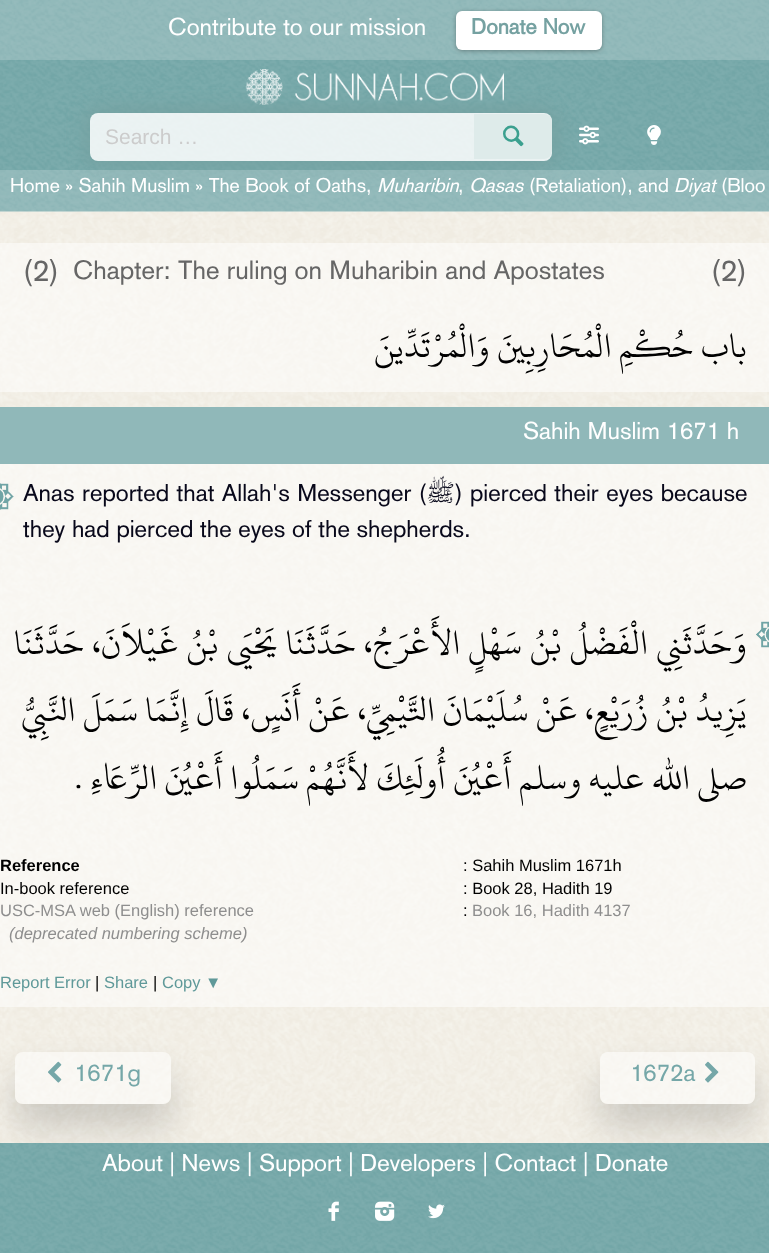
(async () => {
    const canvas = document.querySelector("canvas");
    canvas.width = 769;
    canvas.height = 1253;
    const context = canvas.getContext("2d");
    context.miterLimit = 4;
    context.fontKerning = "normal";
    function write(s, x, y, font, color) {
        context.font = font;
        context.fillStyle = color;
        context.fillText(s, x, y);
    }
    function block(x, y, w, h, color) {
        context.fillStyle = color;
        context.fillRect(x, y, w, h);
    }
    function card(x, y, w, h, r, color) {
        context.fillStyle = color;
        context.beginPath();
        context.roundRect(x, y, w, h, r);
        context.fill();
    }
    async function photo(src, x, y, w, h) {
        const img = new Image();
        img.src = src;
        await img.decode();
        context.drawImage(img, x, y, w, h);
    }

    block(0, 0, 769, 1253, "rgb(255, 255, 255)");
    await photo("media/1.png", 0, 211, 769, 932);
    await photo("media/2.png", 0, 0, 769, 212);
    block(0, 0, 769, 60, "rgba(251, 250, 248, 0.2)");
    write("Contribute to our mission", 168, 35, "24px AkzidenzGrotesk", "rgb(255, 255, 255)");
    context.fillStyle = "rgba(0, 0, 0, 0.3)";
    context.filter = "blur(2px)";
    context.beginPath();
    context.roundRect(456, 12, 146, 39, 6);
    context.fill();
    context.filter = "none";
    card(456, 11, 146, 39, 6, "rgb(255, 255, 255)");
    write("Donate Now", 471, 34, "bold 21.5px AkzidenzGrotesk", "rgb(117, 161, 161)");
    await photo("media/3.png", 245, 69, 259, 36);
    await photo("media/4.png", 579, 125, 20, 20);
    context.save();
    context.beginPath();
    context.moveTo(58, 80);
    context.lineTo(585, 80);
    context.lineTo(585, 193);
    context.lineTo(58, 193);
    context.closePath();
    context.moveTo(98, 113);
    context.lineTo(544, 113);
    context.bezierCurveTo(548.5, 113, 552, 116.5, 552, 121);
    context.lineTo(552, 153);
    context.bezierCurveTo(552, 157.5, 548.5, 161, 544, 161);
    context.lineTo(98, 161);
    context.bezierCurveTo(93.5, 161, 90, 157.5, 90, 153);
    context.lineTo(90, 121);
    context.bezierCurveTo(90, 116.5, 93.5, 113, 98, 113);
    context.closePath();
    context.clip("evenodd");
    context.filter = "blur(9px)";
    context.beginPath();
    context.roundRect(86, 108, 471, 57, 12);
    context.fill();
    context.filter = "none";
    context.restore();
    card(90, 113, 462, 48, 8, "rgba(255, 255, 255, 0.85)");
    write("Search …", 105, 144, "21px Liberation Sans", "rgb(204, 204, 204)");
    context.fillStyle = "rgb(222, 235, 234)";
    context.beginPath();
    context.roundRect(474, 114, 78, 45, [0, 8, 8, 0]);
    context.fill();
    write("l", 503, 145, "26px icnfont", "rgb(59, 160, 143)");
    await photo("media/5.png", 647, 125, 14, 20);
    block(0, 170, 769, 42, "rgba(251, 250, 248, 0.2)");
    write("Home » Sahih Muslim » The Book of Oaths,", 10, 192, "19.5px AkzidenzGrotesk", "rgb(255, 255, 255)");
    write("Muharibin", 377, 192, "italic 19.5px AkzidenzGrotesk", "rgb(255, 255, 255)");
    write(",", 458, 192, "19.5px AkzidenzGrotesk", "rgb(255, 255, 255)");
    write("Qasas", 469, 192, "italic 19.5px AkzidenzGrotesk", "rgb(255, 255, 255)");
    write("(Retaliation), and", 529, 192, "19.5px AkzidenzGrotesk", "rgb(255, 255, 255)");
    write("Diyat", 674, 192, "italic 19.5px AkzidenzGrotesk", "rgb(255, 255, 255)");
    write("(Bloo", 721, 192, "19.5px AkzidenzGrotesk", "rgb(255, 255, 255)");
    block(0, 243, 769, 149, "rgba(255, 255, 255, 0.5)");
    write("(2)", 23, 281, "30px AkzidenzGrotesk", "rgb(102, 102, 102)");
    write("Chapter: The ruling on Muharibin and Apostates", 73, 279, "26px AkzidenzGrotesk", "rgb(102, 102, 102)");
    write("(2)", 711, 281, "30px AkzidenzGrotesk", "rgb(102, 102, 102)");
    context.direction = "rtl";
    write("باب حُكْمِ الْمُحَارِبِينَ وَالْمُرْتَدِّينَ ", 747, 357, "37.5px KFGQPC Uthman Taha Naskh", "rgb(0, 0, 0)");
    block(0, 464, 769, 543, "rgba(255, 255, 255, 0.5)");
    block(0, 407, 769, 57, "rgb(144, 184, 185)");
    context.direction = "ltr";
    write("Sahih Muslim 1671 h", 523, 439, "24px AkzidenzGrotesk", "rgb(255, 255, 255)");
    await photo("media/6.png", 0, 483, 14, 27);
    context.wordSpacing = "0.75px";
    write("Anas reported that Allah's Messenger (", 23, 501, "24px AkzidenzGrotesk", "rgb(8, 8, 26)");
    context.wordSpacing = "0px";
    context.direction = "rtl";
    write("ﷺ", 455, 501, "24px Lateef", "rgb(8, 8, 26)");
    context.wordSpacing = "0.75px";
    context.direction = "ltr";
    write(") pierced their eyes because", 455, 501, "24px AkzidenzGrotesk", "rgb(8, 8, 26)");
    context.wordSpacing = "0px";
    write("they had pierced the eyes of the shepherds.", 23, 537, "24px AkzidenzGrotesk", "rgb(8, 8, 26)");
    context.wordSpacing = "0.75px";
    context.direction = "rtl";
    write("وَحَدَّثَنِي الْفَضْلُ بْنُ سَهْلٍ الأَعْرَجُ، حَدَّثَنَا يَحْيَى بْنُ غَيْلاَنَ، حَدَّثَنَا", 747, 654, "37.5px KFGQPC Uthman Taha Naskh", "rgb(0, 0, 0)");
    await photo("media/7.png", 756, 621, 13, 27);
    context.wordSpacing = "0.25px";
    write("يَزِيدُ بْنُ زُرَيْعٍ، عَنْ سُلَيْمَانَ التَّيْمِيِّ، عَنْ أَنَسٍ، قَالَ إِنَّمَا سَمَلَ النَّبِيُّ", 747, 721, "37.5px KFGQPC Uthman Taha Naskh", "rgb(0, 0, 0)");
    context.wordSpacing = "0px";
    write("صلى الله عليه وسلم أَعْيُنَ أُولَئِكَ لأَنَّهُمْ سَمَلُوا أَعْيُنَ الرِّعَاءِ .", 747, 789, "37.5px KFGQPC Uthman Taha Naskh", "rgb(0, 0, 0)");
    context.direction = "ltr";
    write("Reference", 0, 871, "bold 16.5px Liberation Sans", "rgb(0, 0, 0)");
    write(": Sahih Muslim 1671h", 463, 871, "16.5px Liberation Sans", "rgb(0, 0, 0)");
    write("In-book reference", 0, 894, "16.5px Liberation Sans", "rgb(0, 0, 0)");
    write(": Book 28, Hadith 19", 463, 894, "16.5px Liberation Sans", "rgb(0, 0, 0)");
    write("USC-MSA web (English) reference", 0, 916, "16.5px Liberation Sans", "rgb(142, 142, 142)");
    write(":", 463, 916, "16.5px Liberation Sans", "rgb(0, 0, 0)");
    write("Book 16, Hadith 4137", 472, 916, "16.5px Liberation Sans", "rgb(142, 142, 142)");
    write("(deprecated numbering scheme)", 9, 939, "italic 16.5px Liberation Sans", "rgb(142, 142, 142)");
    write("Report Error", 0, 988, "16.5px Liberation Sans", "rgb(95, 153, 153)");
    write("|", 95, 988, "16.5px Liberation Sans", "rgb(0, 0, 0)");
    write("Share", 104, 988, "16.5px Liberation Sans", "rgb(95, 153, 153)");
    write("|", 153, 988, "16.5px Liberation Sans", "rgb(0, 0, 0)");
    write("Copy ▼", 162, 988, "16.5px Liberation Sans", "rgb(95, 153, 153)");
    context.save();
    context.beginPath();
    context.moveTo(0, 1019);
    context.lineTo(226, 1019);
    context.lineTo(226, 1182);
    context.lineTo(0, 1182);
    context.closePath();
    context.moveTo(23, 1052);
    context.lineTo(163, 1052);
    context.bezierCurveTo(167.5, 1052, 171, 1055.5, 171, 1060);
    context.lineTo(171, 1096);
    context.bezierCurveTo(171, 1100.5, 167.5, 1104, 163, 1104);
    context.lineTo(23, 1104);
    context.bezierCurveTo(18.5, 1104, 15, 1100.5, 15, 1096);
    context.lineTo(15, 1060);
    context.bezierCurveTo(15, 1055.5, 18.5, 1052, 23, 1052);
    context.closePath();
    context.clip("evenodd");
    context.fillStyle = "rgba(0, 0, 0, 0.16)";
    context.filter = "blur(18px)";
    context.beginPath();
    context.roundRect(15, 1074, 156, 53, 8);
    context.fill();
    context.filter = "none";
    context.restore();
    card(15, 1052, 156, 52, 8, "rgba(255, 255, 255, 0.5)");
    write("<", 48, 1081, "23px icnfont", "rgb(117, 167, 168)");
    write("1671g", 74, 1081, "24px AkzidenzGrotesk", "rgb(117, 167, 168)");
    context.save();
    context.beginPath();
    context.moveTo(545, 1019);
    context.lineTo(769, 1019);
    context.lineTo(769, 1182);
    context.lineTo(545, 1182);
    context.closePath();
    context.moveTo(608, 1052);
    context.lineTo(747, 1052);
    context.bezierCurveTo(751.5, 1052, 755, 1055.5, 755, 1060);
    context.lineTo(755, 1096);
    context.bezierCurveTo(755, 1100.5, 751.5, 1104, 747, 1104);
    context.lineTo(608, 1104);
    context.bezierCurveTo(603.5, 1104, 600, 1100.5, 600, 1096);
    context.lineTo(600, 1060);
    context.bezierCurveTo(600, 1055.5, 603.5, 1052, 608, 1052);
    context.closePath();
    context.clip("evenodd");
    context.fillStyle = "rgba(0, 0, 0, 0.16)";
    context.filter = "blur(18px)";
    context.beginPath();
    context.roundRect(600, 1074, 155, 53, 8);
    context.fill();
    context.filter = "none";
    context.restore();
    card(600, 1052, 155, 52, 8, "rgba(255, 255, 255, 0.5)");
    write("1672a", 630, 1081, "24px AkzidenzGrotesk", "rgb(117, 167, 168)");
    write(">", 705, 1081, "23px icnfont", "rgb(117, 167, 168)");
    await photo("media/8.png", 0, 1143, 769, 110);
    write("About | News | Support | Developers | Contact | Donate", 102, 1171, "24px AkzidenzGrotesk", "rgb(255, 255, 255)");
    await photo("media/9.png", 328, 1201, 11, 20);
    await photo("media/10.png", 375, 1201, 20, 20);
    await photo("media/11.png", 428, 1204, 17, 15);
})();
